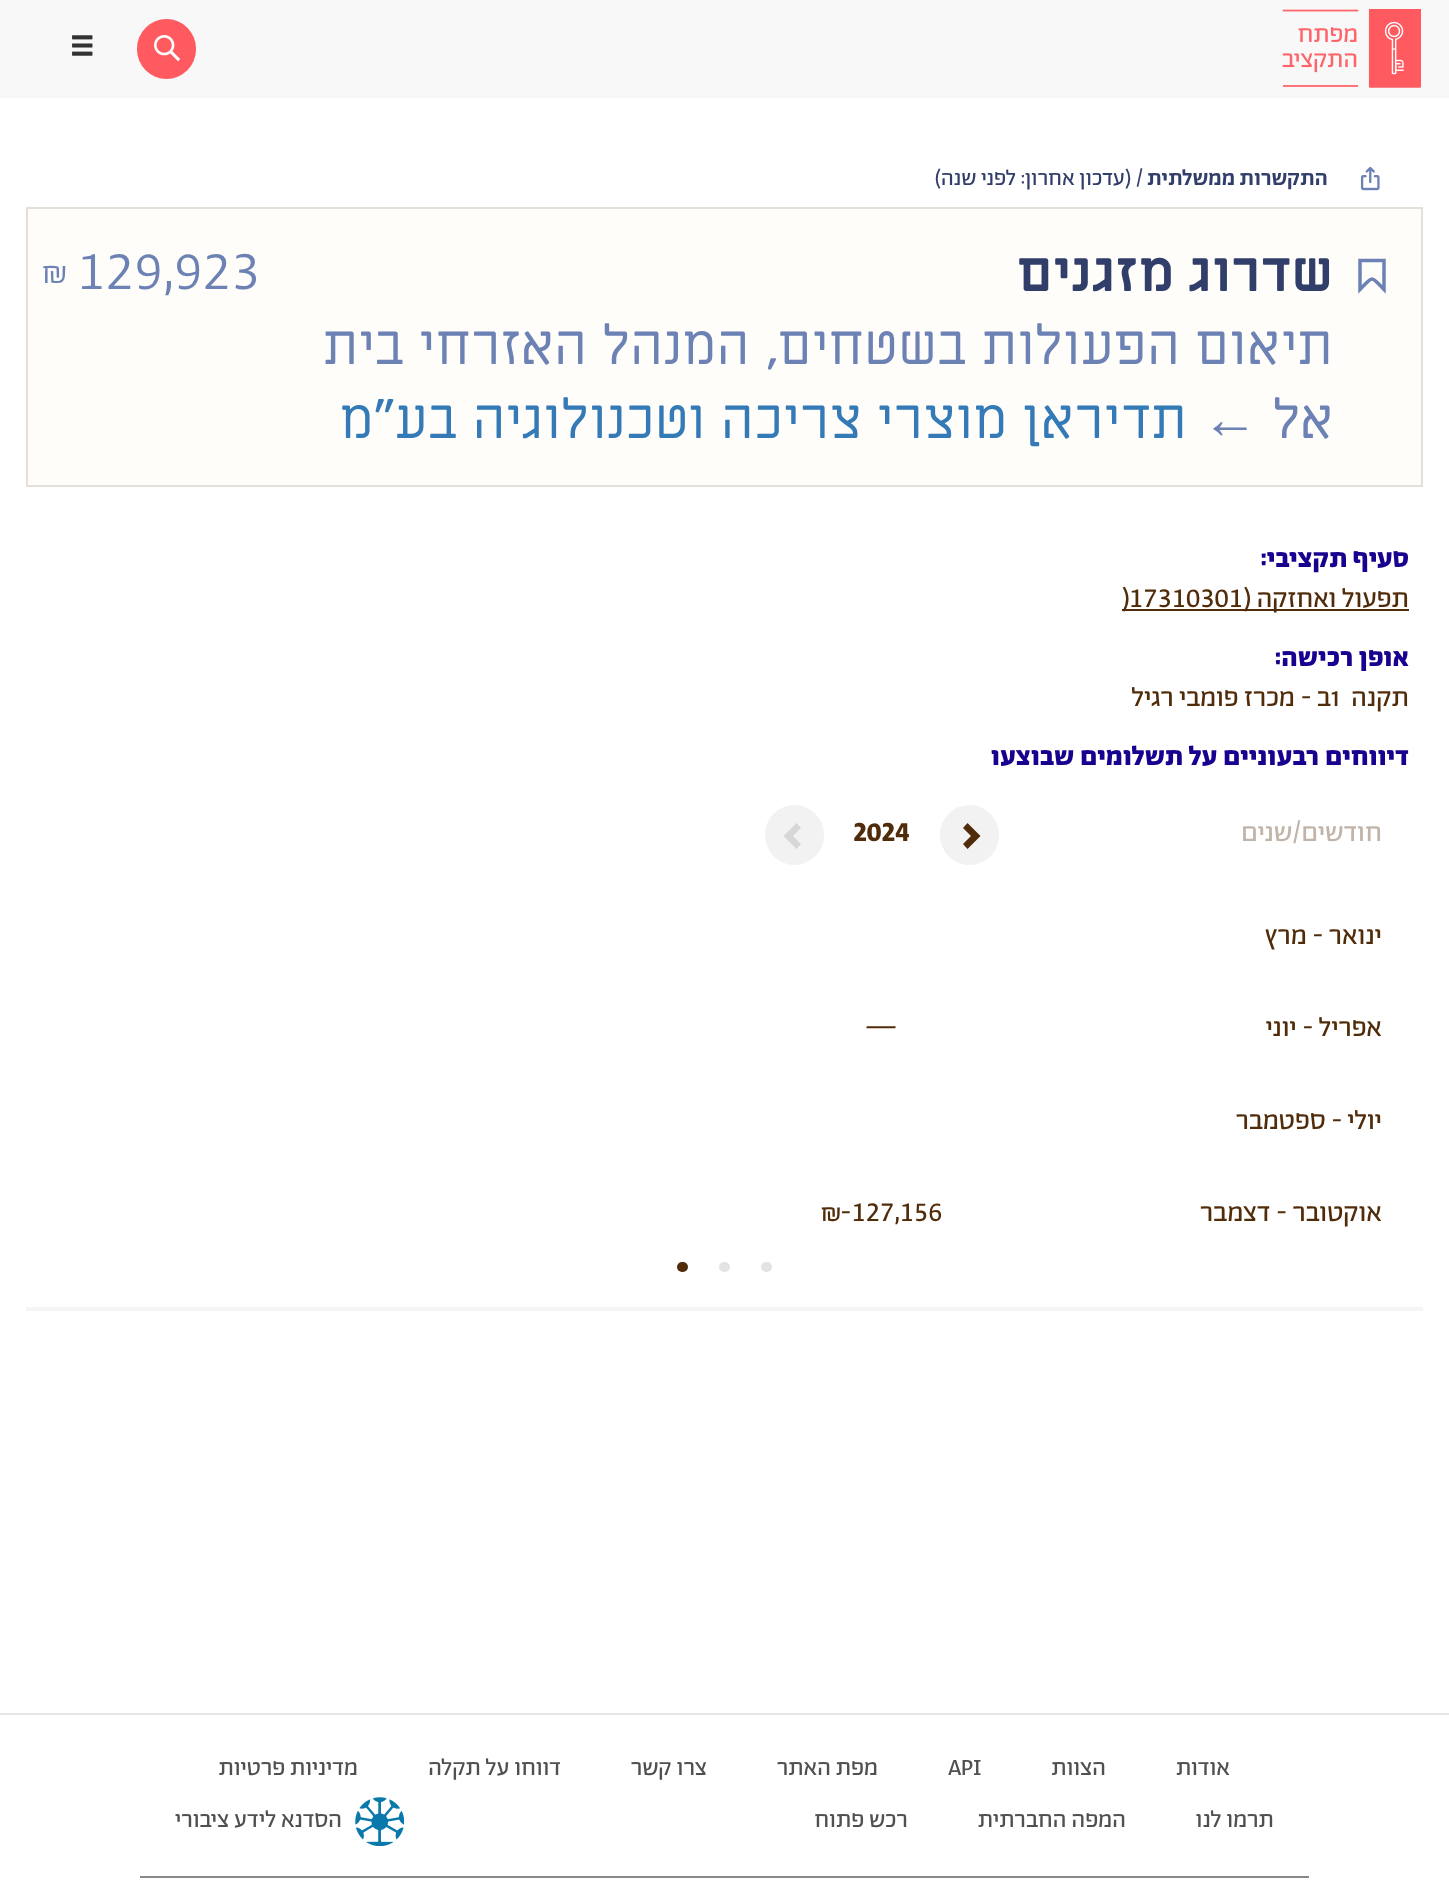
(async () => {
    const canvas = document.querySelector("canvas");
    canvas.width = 1449;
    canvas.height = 1888;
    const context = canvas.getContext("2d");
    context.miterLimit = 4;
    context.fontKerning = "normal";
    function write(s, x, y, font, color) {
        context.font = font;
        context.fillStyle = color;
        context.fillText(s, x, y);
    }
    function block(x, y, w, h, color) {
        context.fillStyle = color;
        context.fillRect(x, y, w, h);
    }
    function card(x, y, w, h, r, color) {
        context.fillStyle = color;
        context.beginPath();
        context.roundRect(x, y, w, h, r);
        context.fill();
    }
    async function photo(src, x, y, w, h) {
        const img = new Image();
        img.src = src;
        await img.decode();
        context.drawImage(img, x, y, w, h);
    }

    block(0, 0, 1449, 1888, "rgb(255, 255, 255)");
    block(0, 0, 1449, 98, "rgb(248, 248, 248)");
    await photo("media/1.png", 1282, 9, 139, 79);
    card(137, 19, 59, 60, 29.5, "rgb(255, 90, 95)");
    await photo("media/2.png", 154, 35, 26, 26);
    await photo("media/3.png", 72, 35, 21, 21);
    await photo("media/4.png", 1360, 166, 20, 25);
    context.direction = "rtl";
    write("התקשרות ממשלתית", 1328, 185, "500 22.75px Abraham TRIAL", "rgb(49, 62, 105)");
    context.direction = "ltr";
    write("/", 1136, 185, "22.75px Abraham TRIAL", "rgb(49, 62, 105)");
    context.direction = "rtl";
    write("(עדכון אחרון: לפני שנה)", 1131, 185, "22.75px Abraham TRIAL", "rgb(49, 62, 105)");
    context.fillStyle = "rgb(255, 253, 250)";
    context.beginPath();
    context.rect(27, 208, 1395, 278);
    context.fill();
    context.strokeStyle = "rgb(229, 223, 218)";
    context.lineWidth = 2;
    context.stroke();
    context.beginPath();
    context.moveTo(1360, 260.5);
    context.lineTo(1384, 260.5);
    context.lineTo(1384, 289.5);
    context.bezierCurveTo(1370, 275.5, 1374, 275.5, 1360, 289.5);
    context.closePath();
    context.strokeStyle = "rgb(109, 130, 180)";
    context.lineWidth = 3.5;
    context.stroke();
    write("שדרוג מזגנים", 1333, 291, "bold 56px Miriam Libre", "rgb(49, 62, 105)");
    write("תיאום הפעולות בשטחים, המנהל האזרחי", 1333, 364, "56px Miriam Libre", "rgb(109, 130, 180)");
    write("בית", 404, 364, "56px Miriam Libre", "rgb(109, 130, 180)");
    write("אל", 1333, 438, "56px Miriam Libre", "rgb(109, 130, 180)");
    write("←", 1258, 438, "56px Liberation Sans", "rgb(109, 130, 180)");
    write("תדיראן מוצרי צריכה וטכנולוגיה בע״מ", 1187, 438, "56px Miriam Libre", "rgb(51, 122, 183)");
    context.direction = "ltr";
    write("129,923", 77, 289, "300 56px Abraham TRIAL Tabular", "rgb(109, 130, 180)");
    write("₪", 42, 283, "300 35px Abraham TRIAL", "rgb(109, 130, 180)");
    block(26, 1307, 1397, 4, "rgb(245, 245, 245)");
    context.direction = "rtl";
    write("סעיף תקציבי:", 1409, 567, "bold 28px Abraham TRIAL", "rgb(25, 0, 143)");
    block(1122, 609, 287, 2, "rgb(81, 44, 10)");
    write("תפעול ואחזקה (", 1409, 607, "28px Abraham TRIAL", "rgb(81, 44, 10)");
    context.direction = "ltr";
    write("17310301", 1129, 607, "28px Abraham TRIAL Tabular", "rgb(81, 44, 10)");
    write(")", 1122, 607, "28px Abraham TRIAL", "rgb(81, 44, 10)");
    context.direction = "rtl";
    write("אופן רכישה:", 1409, 666, "bold 28px Abraham TRIAL", "rgb(25, 0, 143)");
    write("תקנה", 1409, 706, "28px Abraham TRIAL", "rgb(81, 44, 10)");
    context.direction = "ltr";
    write("1", 1331, 706, "28px Abraham TRIAL", "rgb(81, 44, 10)");
    context.direction = "rtl";
    write("ב - מכרז פומבי רגיל", 1331, 706, "28px Abraham TRIAL", "rgb(81, 44, 10)");
    write("דיווחים רבעוניים על תשלומים שבוצעו", 1409, 765, "bold 28px Abraham TRIAL", "rgb(25, 0, 143)");
    write("חודשים/שנים", 1382, 841, "28px Abraham TRIAL", "rgb(192, 179, 167)");
    card(940, 805, 59, 60, 29.5, "rgb(242, 242, 242)");
    context.fillStyle = "rgb(81, 44, 10)";
    context.beginPath();
    context.moveTo(980.5, 836);
    context.lineTo(967.5, 849);
    context.lineTo(963, 844);
    context.lineTo(971, 836);
    context.lineTo(963, 828);
    context.lineTo(967.5, 823);
    context.closePath();
    context.fill();
    context.direction = "ltr";
    write("2024", 853, 841, "bold 28px Abraham TRIAL Tabular", "rgb(81, 44, 10)");
    card(765, 805, 59, 60, 29.5, "rgb(242, 242, 242)");
    context.fillStyle = "rgb(215, 215, 215)";
    context.beginPath();
    context.moveTo(801, 828);
    context.lineTo(793, 836);
    context.lineTo(801, 844);
    context.lineTo(796.5, 849);
    context.lineTo(783.5, 836);
    context.lineTo(796.5, 823);
    context.closePath();
    context.fill();
    context.direction = "rtl";
    write("ינואר - מרץ", 1382, 944, "28px Abraham TRIAL", "rgb(81, 44, 10)");
    write("אפריל - יוני", 1382, 1036, "28px Abraham TRIAL", "rgb(81, 44, 10)");
    context.direction = "ltr";
    write("—", 865, 1036, "28px Abraham TRIAL", "rgb(81, 44, 10)");
    context.direction = "rtl";
    write("יולי - ספטמבר", 1382, 1129, "28px Abraham TRIAL", "rgb(81, 44, 10)");
    write("אוקטובר - דצמבר", 1382, 1221, "28px Abraham TRIAL", "rgb(81, 44, 10)");
    context.direction = "ltr";
    write("₪-127,156", 821, 1221, "28px Abraham TRIAL Tabular", "rgb(81, 44, 10)");
    card(761, 1262, 11, 10, 5, "rgb(227, 227, 227)");
    card(719, 1262, 11, 10, 5, "rgb(227, 227, 227)");
    card(677, 1262, 11, 10, 5, "rgb(81, 44, 10)");
    block(0, 1713, 1449, 2, "rgb(229, 229, 229)");
    block(140, 1876, 1169, 2, "rgb(136, 136, 136)");
    context.direction = "rtl";
    write("אודות", 1230, 1775, "24.5px Abraham TRIAL", "rgb(80, 80, 80)");
    write("הצוות", 1106, 1775, "24.5px Abraham TRIAL", "rgb(80, 80, 80)");
    context.direction = "ltr";
    write("API", 948, 1775, "24.5px Abraham TRIAL", "rgb(80, 80, 80)");
    context.direction = "rtl";
    write("מפת האתר", 878, 1775, "24.5px Abraham TRIAL", "rgb(80, 80, 80)");
    write("צרו קשר", 707, 1775, "24.5px Abraham TRIAL", "rgb(80, 80, 80)");
    write("דווחו על תקלה", 561, 1775, "24.5px Abraham TRIAL", "rgb(80, 80, 80)");
    write("מדיניות פרטיות", 358, 1775, "24.5px Abraham TRIAL", "rgb(80, 80, 80)");
    write("תרמו לנו", 1274, 1827, "24.5px Abraham TRIAL", "rgb(80, 80, 80)");
    write("המפה החברתית", 1126, 1827, "24.5px Abraham TRIAL", "rgb(80, 80, 80)");
    write("רכש פתוח", 908, 1827, "24.5px Abraham TRIAL", "rgb(80, 80, 80)");
    await photo("media/5.png", 355, 1797, 49, 49);
    write("הסדנא לידע ציבורי", 342, 1827, "24.5px Abraham TRIAL", "rgb(80, 80, 80)");
})();
